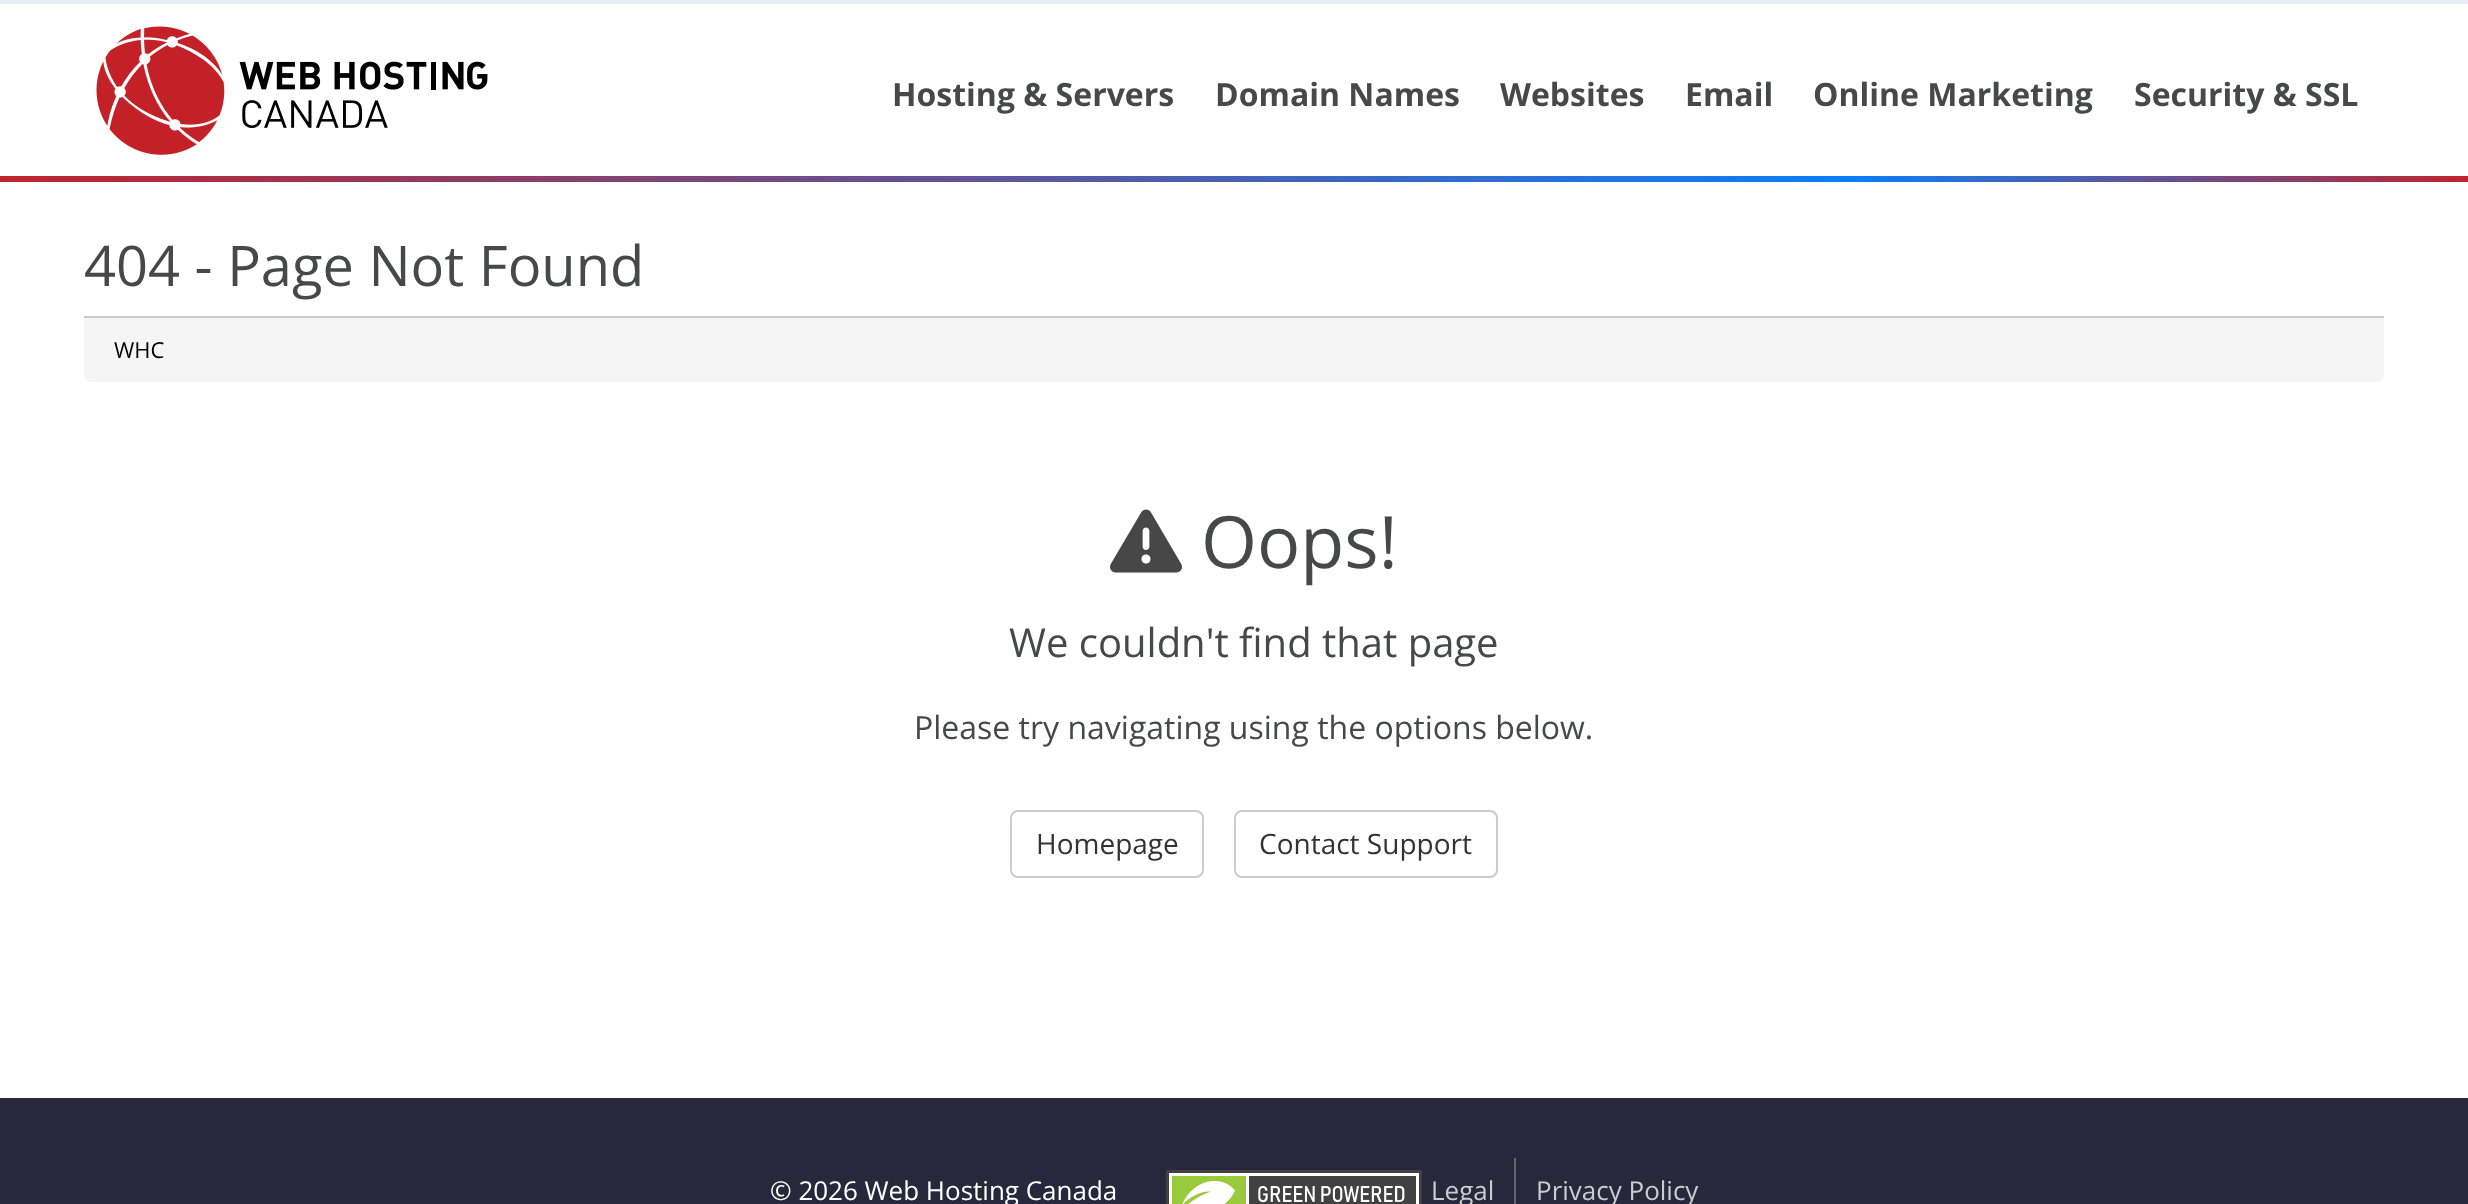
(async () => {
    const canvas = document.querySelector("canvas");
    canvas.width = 2468;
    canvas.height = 1204;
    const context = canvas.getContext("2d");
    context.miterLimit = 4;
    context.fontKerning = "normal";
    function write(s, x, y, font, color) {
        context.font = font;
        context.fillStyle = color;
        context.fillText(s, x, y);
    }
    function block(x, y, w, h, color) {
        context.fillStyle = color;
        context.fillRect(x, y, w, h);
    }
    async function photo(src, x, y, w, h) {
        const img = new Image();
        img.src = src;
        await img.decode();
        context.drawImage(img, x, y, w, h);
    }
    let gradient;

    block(0, 0, 2468, 1204, "rgb(255, 255, 255)");
    block(0, 0, 2468, 4, "rgb(233, 237, 246)");
    await photo("media/1.png", 96, 26, 392, 129);
    write("Hosting & Servers", 892, 106, "bold 32px Open Sans", "rgb(71, 72, 72)");
    write("Domain Names", 1215, 106, "bold 32px Open Sans", "rgb(71, 72, 72)");
    write("Websites", 1500, 106, "bold 32px Open Sans", "rgb(71, 72, 72)");
    write("Email", 1685, 106, "bold 32px Open Sans", "rgb(71, 72, 72)");
    write("Online Marketing", 1813, 106, "bold 32px Open Sans", "rgb(71, 72, 72)");
    write("Security & SSL", 2134, 106, "bold 32px Open Sans", "rgb(71, 72, 72)");
    gradient = context.createLinearGradient(0, 179, 2468, 179);
    gradient.addColorStop(0, "rgb(192, 36, 46)");
    gradient.addColorStop(0.75, "rgb(9, 127, 250)");
    gradient.addColorStop(1, "rgb(192, 36, 46)");
    context.fillStyle = gradient;
    context.fillRect(0, 176, 2468, 6);
    block(84, 316, 2300, 2, "rgb(204, 204, 204)");
    write("404 - Page Not Found", 84, 286, "56px Open Sans", "rgb(71, 72, 72)");
    context.fillStyle = "rgb(245, 245, 245)";
    context.beginPath();
    context.roundRect(84, 318, 2300, 64, [0, 0, 8, 8]);
    context.fill();
    write("WHC", 114, 358, "22px Open Sans", "rgb(0, 0, 0)");
    await photo("media/2.png", 1110, 509, 72, 64);
    write("Oops!", 1201, 568, "72px Open Sans", "rgb(71, 72, 72)");
    write("We couldn't find that page", 1009, 657, "40px Open Sans", "rgb(71, 72, 72)");
    write("Please try navigating using the options below.", 914, 739, "32px Open Sans", "rgb(71, 72, 72)");
    context.beginPath();
    context.roundRect(1011, 811, 192, 66, 7);
    context.strokeStyle = "rgb(204, 204, 204)";
    context.lineWidth = 2;
    context.stroke();
    write("Homepage", 1036, 854, "28px Open Sans", "rgb(51, 51, 51)");
    context.beginPath();
    context.roundRect(1235, 811, 262, 66, 7);
    context.stroke();
    write("Contact Support", 1259, 854, "28px Open Sans", "rgb(51, 51, 51)");
    block(0, 1098, 2468, 106, "rgb(39, 40, 60)");
    write("© 2026 Web Hosting Canada", 770, 1200, "26px Open Sans", "rgb(255, 255, 255)");
    await photo("media/3.png", 1166, 1170, 256, 34);
    block(1514, 1158, 2, 46, "rgb(102, 102, 102)");
    write("Legal", 1431, 1200, "26px Open Sans", "rgb(204, 204, 204)");
    write("Privacy Policy", 1536, 1200, "26px Open Sans", "rgb(204, 204, 204)");
})();
